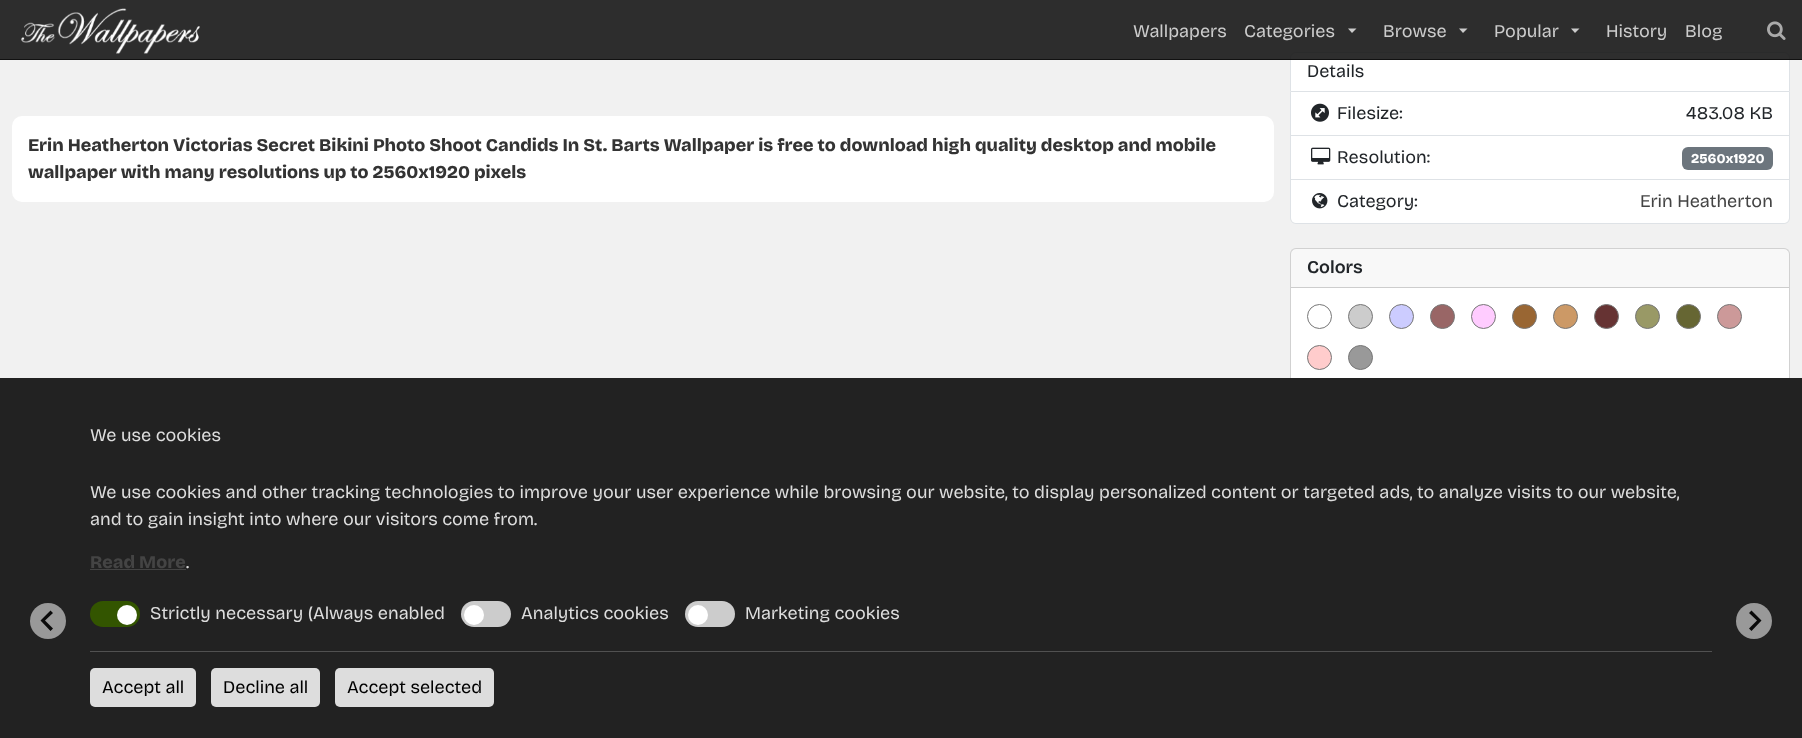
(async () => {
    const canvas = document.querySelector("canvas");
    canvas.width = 1802;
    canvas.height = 738;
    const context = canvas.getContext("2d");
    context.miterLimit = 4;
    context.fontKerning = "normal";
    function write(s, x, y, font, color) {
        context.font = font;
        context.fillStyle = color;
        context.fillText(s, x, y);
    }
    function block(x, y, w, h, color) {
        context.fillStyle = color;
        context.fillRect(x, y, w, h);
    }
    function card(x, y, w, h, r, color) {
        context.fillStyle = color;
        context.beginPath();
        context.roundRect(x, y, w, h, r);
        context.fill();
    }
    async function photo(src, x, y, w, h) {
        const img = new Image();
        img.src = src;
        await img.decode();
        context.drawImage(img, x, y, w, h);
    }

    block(0, 0, 1802, 738, "rgb(241, 241, 241)");
    context.fillStyle = "rgb(255, 255, 255)";
    context.beginPath();
    context.roundRect(1290.5, 52.5, 499, 39, [5.5, 5.5, 0, 0]);
    context.fill();
    context.strokeStyle = "rgb(222, 226, 230)";
    context.stroke();
    block(0, 0, 1802, 59, "rgba(17, 17, 17, 0.88)");
    block(0, 59, 1802, 1, "rgb(17, 17, 17)");
    await photo("media/1.png", 21, 8, 179, 46);
    write("Wallpapers", 1133, 37, "18px Bricolage Grotesque", "rgb(204, 204, 204)");
    write("Categories", 1244, 37, "18px Bricolage Grotesque", "rgb(204, 204, 204)");
    context.beginPath();
    context.moveTo(1352, 33);
    context.lineTo(1348, 28.5);
    context.lineTo(1356.5, 28.5);
    context.closePath();
    context.fill();
    write("Browse", 1383, 37, "18px Bricolage Grotesque", "rgb(204, 204, 204)");
    context.beginPath();
    context.moveTo(1463, 33);
    context.lineTo(1459, 28.5);
    context.lineTo(1467.5, 28.5);
    context.closePath();
    context.fill();
    write("Popular", 1494, 37, "18px Bricolage Grotesque", "rgb(204, 204, 204)");
    context.beginPath();
    context.moveTo(1575, 33);
    context.lineTo(1571, 28.5);
    context.lineTo(1579.5, 28.5);
    context.closePath();
    context.fill();
    write("History", 1606, 37, "18px Bricolage Grotesque", "rgb(204, 204, 204)");
    write("Blog", 1685, 37, "18px Bricolage Grotesque", "rgb(204, 204, 204)");
    await photo("media/2.png", 1767, 21, 19, 19);
    card(12, 116, 1262, 86, 10, "rgb(255, 255, 255)");
    write("Erin Heatherton Victorias Secret Bikini Photo Shoot Candids In St. Barts Wallpaper is free to download high quality desktop and mobile", 28, 151, "800 18px Bricolage Grotesque", "rgb(51, 51, 51)");
    write("wallpaper with many resolutions up to 2560x1920 pixels", 28, 178, "800 18px Bricolage Grotesque", "rgb(51, 51, 51)");
    write("Details", 1307, 77, "18px Bricolage Grotesque", "rgb(33, 37, 41)");
    block(1291, 92, 498, 43, "rgb(255, 255, 255)");
    block(1789, 92, 1, 88, "rgb(222, 226, 230)");
    block(1290, 135, 500, 1, "rgb(222, 226, 230)");
    block(1290, 92, 1, 44, "rgb(222, 226, 230)");
    await photo("media/3.png", 1311, 103, 18, 19);
    write("Filesize:", 1337, 119, "18px Bricolage Grotesque", "rgb(33, 37, 41)");
    write("483.08 KB", 1686, 119, "18px Bricolage Grotesque", "rgb(33, 37, 41)");
    block(1291, 136, 498, 43, "rgb(255, 255, 255)");
    block(1290, 179, 500, 1, "rgb(222, 226, 230)");
    block(1290, 136, 1, 44, "rgb(222, 226, 230)");
    await photo("media/4.png", 1311, 147, 20, 18);
    write("Resolution:", 1337, 163, "18px Bricolage Grotesque", "rgb(33, 37, 41)");
    card(1682, 147, 91, 23, 6, "rgb(108, 117, 125)");
    write("2560x1920", 1691, 163, "800 13.5px 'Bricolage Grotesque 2'", "rgb(255, 255, 255)");
    context.beginPath();
    context.roundRect(1291, 180, 498, 43, [0, 0, 5, 5]);
    context.fill();
    context.fillStyle = "rgb(222, 226, 230)";
    context.beginPath();
    context.moveTo(1290, 180);
    context.lineTo(1790, 180);
    context.lineTo(1790, 218);
    context.bezierCurveTo(1790, 221, 1787, 224, 1784, 224);
    context.lineTo(1296, 224);
    context.bezierCurveTo(1293, 224, 1290, 221, 1290, 218);
    context.closePath();
    context.moveTo(1291, 180);
    context.lineTo(1789, 180);
    context.lineTo(1789, 218);
    context.bezierCurveTo(1789, 221, 1787, 223, 1784, 223);
    context.lineTo(1296, 223);
    context.bezierCurveTo(1293, 223, 1291, 221, 1291, 218);
    context.closePath();
    context.fill("evenodd");
    await photo("media/5.png", 1312, 193, 16, 16);
    write("Category:", 1337, 207, "18px Bricolage Grotesque", "rgb(33, 37, 41)");
    write("Erin Heatherton", 1640, 207, "18px Bricolage Grotesque", "rgb(68, 68, 68)");
    card(1290, 248, 500, 139, 6, "rgb(255, 255, 255)");
    context.beginPath();
    context.roundRect(1290.5, 248.5, 499, 138, 5.5);
    context.strokeStyle = "rgba(0, 0, 0, 0.18)";
    context.stroke();
    block(1291, 249, 498, 38, "rgba(33, 37, 41, 0.03)");
    block(1291, 287, 498, 1, "rgb(205, 205, 205)");
    write("Colors", 1307, 273, "600 18px Bricolage Grotesque", "rgb(33, 37, 41)");
    context.beginPath();
    context.arc(1319.5, 316.5, 12, 0, Math.PI * 2);
    context.strokeStyle = "rgb(119, 119, 119)";
    context.stroke();
    context.fillStyle = "rgb(204, 204, 204)";
    context.beginPath();
    context.arc(1360.5, 316.5, 12, 0, Math.PI * 2);
    context.fill();
    context.stroke();
    context.fillStyle = "rgb(204, 204, 255)";
    context.beginPath();
    context.arc(1401.5, 316.5, 12, 0, Math.PI * 2);
    context.fill();
    context.stroke();
    context.fillStyle = "rgb(153, 102, 102)";
    context.beginPath();
    context.arc(1442.5, 316.5, 12, 0, Math.PI * 2);
    context.fill();
    context.stroke();
    context.fillStyle = "rgb(255, 204, 255)";
    context.beginPath();
    context.arc(1483.5, 316.5, 12, 0, Math.PI * 2);
    context.fill();
    context.stroke();
    context.fillStyle = "rgb(153, 102, 51)";
    context.beginPath();
    context.arc(1524.5, 316.5, 12, 0, Math.PI * 2);
    context.fill();
    context.stroke();
    context.fillStyle = "rgb(204, 153, 102)";
    context.beginPath();
    context.arc(1565.5, 316.5, 12, 0, Math.PI * 2);
    context.fill();
    context.stroke();
    context.fillStyle = "rgb(102, 51, 51)";
    context.beginPath();
    context.arc(1606.5, 316.5, 12, 0, Math.PI * 2);
    context.fill();
    context.stroke();
    context.fillStyle = "rgb(153, 153, 102)";
    context.beginPath();
    context.arc(1647.5, 316.5, 12, 0, Math.PI * 2);
    context.fill();
    context.stroke();
    context.fillStyle = "rgb(102, 102, 51)";
    context.beginPath();
    context.arc(1688.5, 316.5, 12, 0, Math.PI * 2);
    context.fill();
    context.stroke();
    context.fillStyle = "rgb(204, 153, 153)";
    context.beginPath();
    context.arc(1729.5, 316.5, 12, 0, Math.PI * 2);
    context.fill();
    context.stroke();
    context.fillStyle = "rgb(255, 204, 204)";
    context.beginPath();
    context.arc(1319.5, 357.5, 12, 0, Math.PI * 2);
    context.fill();
    context.stroke();
    context.fillStyle = "rgb(153, 153, 153)";
    context.beginPath();
    context.arc(1360.5, 357.5, 12, 0, Math.PI * 2);
    context.fill();
    context.stroke();
    block(0, 378, 1802, 360, "rgb(34, 34, 34)");
    context.fillStyle = "rgb(153, 153, 153)";
    context.beginPath();
    context.arc(48, 621, 18, 0, Math.PI * 2);
    context.fill();
    context.fillStyle = "rgb(10, 10, 10)";
    context.beginPath();
    context.moveTo(50.5, 610.5);
    context.lineTo(53, 613);
    context.lineTo(45, 620.5);
    context.lineTo(53, 628.5);
    context.lineTo(50.5, 631);
    context.lineTo(40.5, 620.5);
    context.closePath();
    context.fill();
    context.fillStyle = "rgb(153, 153, 153)";
    context.beginPath();
    context.arc(1754, 621, 18, 0, Math.PI * 2);
    context.fill();
    context.fillStyle = "rgb(10, 10, 10)";
    context.beginPath();
    context.moveTo(1751.5, 610.5);
    context.lineTo(1749, 613);
    context.lineTo(1757, 620.5);
    context.lineTo(1749, 628.5);
    context.lineTo(1751.5, 631);
    context.lineTo(1761.5, 620.5);
    context.closePath();
    context.fill();
    write("We use cookies", 90, 441, "18px Bricolage Grotesque", "rgb(221, 221, 221)");
    write("We use cookies and other tracking technologies to improve your user experience while browsing our website, to display personalized content or targeted ads, to analyze visits to our website,", 90, 498, "18px Bricolage Grotesque", "rgb(221, 221, 221)");
    write("and to gain insight into where our visitors come from.", 90, 525, "18px Bricolage Grotesque", "rgb(221, 221, 221)");
    write("Read More", 90, 568, "800 18px Bricolage Grotesque", "rgb(68, 68, 68)");
    block(90, 569, 96, 1, "rgb(68, 68, 68)");
    write(".", 186, 568, "18px Bricolage Grotesque", "rgb(221, 221, 221)");
    card(90, 601, 50, 26, 13, "rgb(51, 85, 0)");
    context.fillStyle = "rgb(255, 255, 255)";
    context.beginPath();
    context.arc(127, 615, 10, 0, Math.PI * 2);
    context.fill();
    write("Strictly necessary (Always enabled", 150, 619, "18px Bricolage Grotesque", "rgb(221, 221, 221)");
    card(461, 601, 50, 26, 13, "rgb(204, 204, 204)");
    context.fillStyle = "rgb(255, 255, 255)";
    context.beginPath();
    context.arc(474, 615, 10, 0, Math.PI * 2);
    context.fill();
    write("Analytics cookies", 521, 619, "18px Bricolage Grotesque", "rgb(221, 221, 221)");
    card(685, 601, 50, 26, 13, "rgb(204, 204, 204)");
    context.fillStyle = "rgb(255, 255, 255)";
    context.beginPath();
    context.arc(698, 615, 10, 0, Math.PI * 2);
    context.fill();
    write("Marketing cookies", 745, 619, "18px Bricolage Grotesque", "rgb(221, 221, 221)");
    block(90, 651, 1622, 1, "rgb(81, 81, 81)");
    card(90, 668, 106, 39, 5, "rgb(221, 221, 221)");
    write("Accept all", 102, 693, "18px Bricolage Grotesque", "rgb(0, 0, 0)");
    card(211, 668, 109, 39, 5, "rgb(221, 221, 221)");
    write("Decline all", 223, 693, "18px Bricolage Grotesque", "rgb(0, 0, 0)");
    card(335, 668, 159, 39, 5, "rgb(221, 221, 221)");
    write("Accept selected", 347, 693, "18px Bricolage Grotesque", "rgb(0, 0, 0)");
})();
